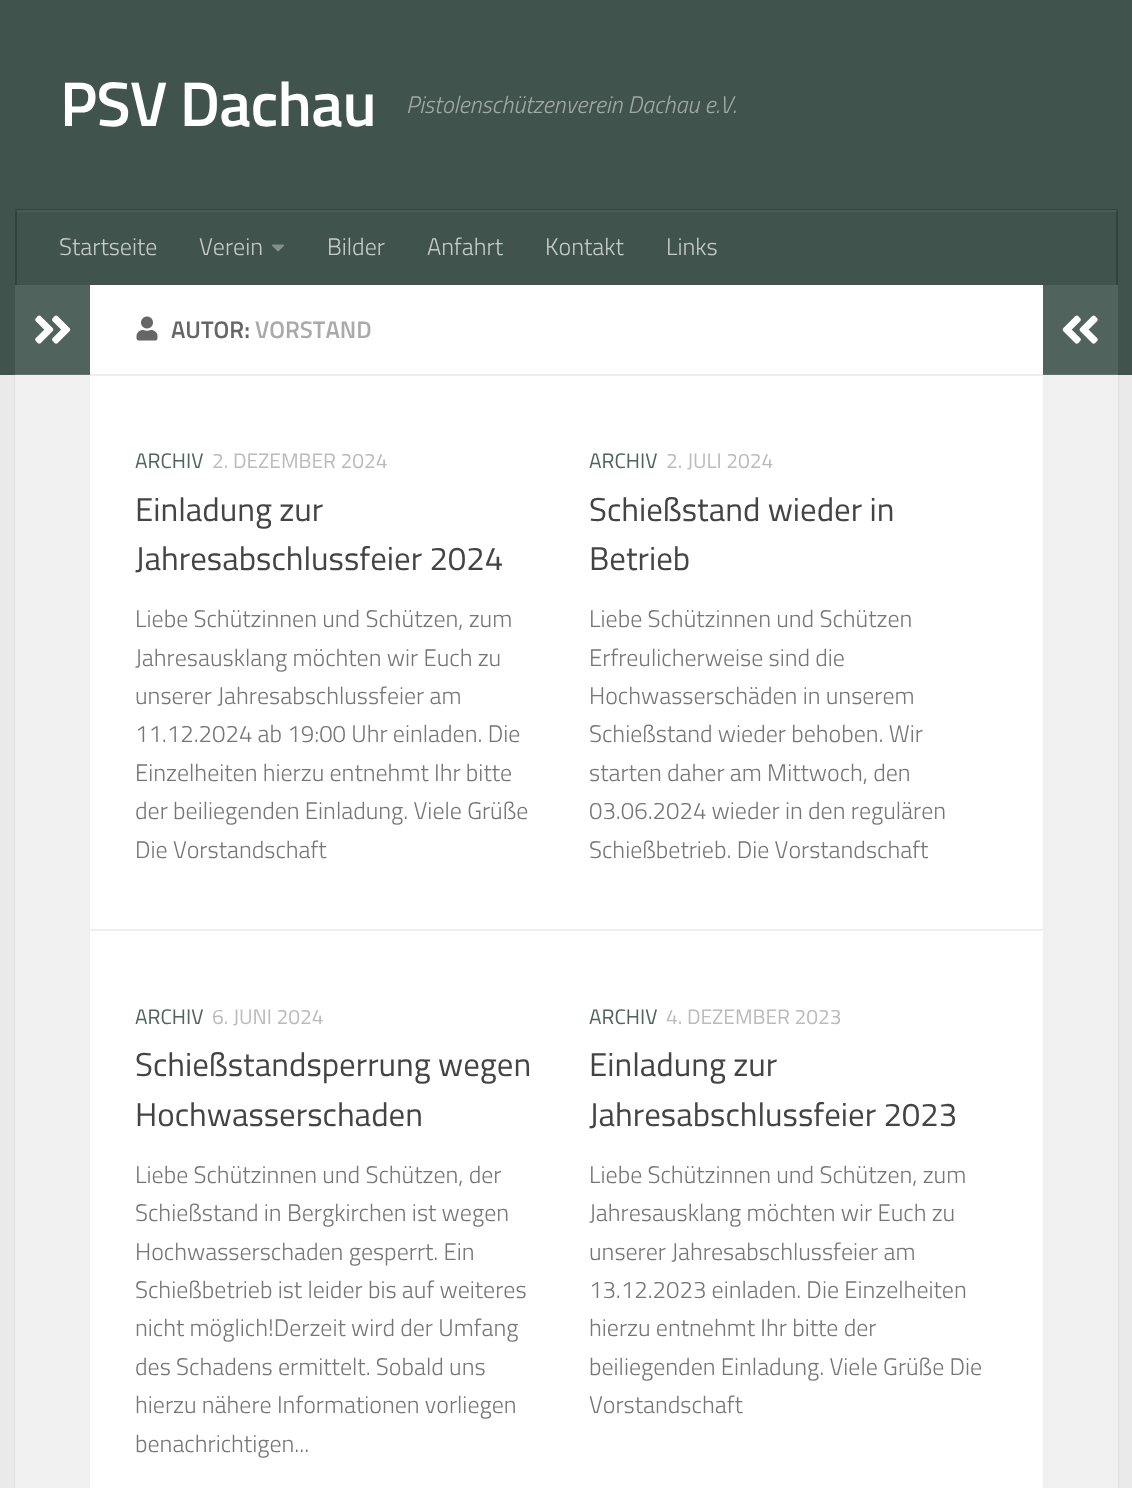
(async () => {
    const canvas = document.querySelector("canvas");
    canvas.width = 1132;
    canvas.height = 1488;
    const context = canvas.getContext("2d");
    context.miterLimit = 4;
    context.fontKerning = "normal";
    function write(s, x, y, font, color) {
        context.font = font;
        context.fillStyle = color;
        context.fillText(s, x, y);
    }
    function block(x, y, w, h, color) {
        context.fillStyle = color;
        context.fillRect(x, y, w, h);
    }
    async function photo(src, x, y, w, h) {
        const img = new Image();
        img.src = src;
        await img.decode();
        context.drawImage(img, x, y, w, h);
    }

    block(0, 0, 1132, 1488, "rgb(234, 234, 234)");
    context.fillStyle = "rgba(0, 0, 0, 0.1)";
    context.filter = "blur(1px)";
    context.beginPath();
    context.rect(15, 287, 1103, 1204);
    context.fill();
    context.filter = "none";
    block(0, 0, 1132, 375, "rgb(64, 83, 76)");
    block(15, 210, 1103, 2, "rgb(74, 92, 85)");
    context.letterSpacing = "-0.75px";
    write("PSV Dachau", 60, 126, "600 63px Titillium", "rgb(255, 255, 255)");
    context.letterSpacing = "0px";
    write("Pistolenschützenverein Dachau e.V.", 406, 113, "italic 300 24px Titillium", "rgb(160, 169, 166)");
    context.fillStyle = "rgb(51, 66, 61)";
    context.beginPath();
    context.moveTo(15, 209);
    context.lineTo(15, 210);
    context.lineTo(1118, 210);
    context.lineTo(1118, 284);
    context.lineTo(1118, 209);
    context.closePath();
    context.fill();
    block(1116, 210, 2, 75, "rgb(51, 66, 61)");
    block(1116, 210, 2, 2, "rgb(61, 75, 71)");
    block(15, 210, 2, 75, "rgb(51, 66, 61)");
    block(15, 210, 2, 2, "rgb(61, 75, 71)");
    write("Startseite", 59, 255, "300 24px Titillium", "rgb(198, 203, 201)");
    write("Verein", 199, 255, "300 24px Titillium", "rgb(198, 203, 201)");
    await photo("media/1.png", 272, 244, 13, 8);
    write("Bilder", 327, 255, "300 24px Titillium", "rgb(198, 203, 201)");
    write("Anfahrt", 427, 255, "300 24px Titillium", "rgb(198, 203, 201)");
    write("Kontakt", 545, 255, "300 24px Titillium", "rgb(198, 203, 201)");
    write("Links", 666, 255, "300 24px Titillium", "rgb(198, 203, 201)");
    block(90, 285, 953, 1203, "rgb(255, 255, 255)");
    block(15, 376, 75, 1112, "rgb(240, 240, 240)");
    block(15, 375, 75, 1, "rgb(242, 242, 242)");
    block(15, 285, 75, 89, "rgb(80, 99, 92)");
    block(15, 374, 75, 1, "rgb(98, 115, 108)");
    await photo("media/2.png", 35, 315, 36, 29);
    block(90, 374, 953, 2, "rgb(238, 238, 238)");
    await photo("media/3.png", 136, 316, 22, 25);
    write("AUTOR:", 171, 338, "600 24px Titillium", "rgb(102, 102, 102)");
    write("VORSTAND", 255, 338, "600 24px Titillium", "rgb(170, 170, 170)");
    block(90, 929, 953, 2, "rgb(238, 238, 238)");
    write("ARCHIV", 135, 468, "21px Titillium", "rgb(80, 99, 92)");
    write("2. DEZEMBER 2024", 212, 468, "21px Titillium", "rgb(187, 187, 187)");
    write("Einladung zur", 135, 521, "33px Titillium", "rgb(68, 68, 68)");
    write("Jahresabschlussfeier 2024", 135, 570, "33px Titillium", "rgb(68, 68, 68)");
    write("Liebe Schützinnen und Schützen, zum", 135, 627, "300 24px Titillium", "rgb(118, 118, 118)");
    write("Jahresausklang möchten wir Euch zu", 135, 666, "300 24px Titillium", "rgb(118, 118, 118)");
    write("unserer Jahresabschlussfeier am", 135, 704, "300 24px Titillium", "rgb(118, 118, 118)");
    write("11.12.2024 ab 19:00 Uhr einladen. Die", 135, 742, "300 24px Titillium", "rgb(118, 118, 118)");
    write("Einzelheiten hierzu entnehmt Ihr bitte", 135, 781, "300 24px Titillium", "rgb(118, 118, 118)");
    write("der beiliegenden Einladung. Viele Grüße", 135, 819, "300 24px Titillium", "rgb(118, 118, 118)");
    write("Die Vorstandschaft", 135, 858, "300 24px Titillium", "rgb(118, 118, 118)");
    write("ARCHIV", 589, 468, "21px Titillium", "rgb(80, 99, 92)");
    write("2. JULI 2024", 666, 468, "21px Titillium", "rgb(187, 187, 187)");
    write("Schießstand wieder in", 589, 521, "33px Titillium", "rgb(68, 68, 68)");
    write("Betrieb", 589, 570, "33px Titillium", "rgb(68, 68, 68)");
    write("Liebe Schützinnen und Schützen", 589, 627, "300 24px Titillium", "rgb(118, 118, 118)");
    write("Erfreulicherweise sind die", 589, 666, "300 24px Titillium", "rgb(118, 118, 118)");
    write("Hochwasserschäden in unserem", 589, 704, "300 24px Titillium", "rgb(118, 118, 118)");
    write("Schießstand wieder behoben. Wir", 589, 742, "300 24px Titillium", "rgb(118, 118, 118)");
    write("starten daher am Mittwoch, den", 589, 781, "300 24px Titillium", "rgb(118, 118, 118)");
    write("03.06.2024 wieder in den regulären", 589, 819, "300 24px Titillium", "rgb(118, 118, 118)");
    write("Schießbetrieb. Die Vorstandschaft", 589, 858, "300 24px Titillium", "rgb(118, 118, 118)");
    write("ARCHIV", 135, 1024, "21px Titillium", "rgb(80, 99, 92)");
    write("6. JUNI 2024", 212, 1024, "21px Titillium", "rgb(187, 187, 187)");
    write("Schießstandsperrung wegen", 135, 1076, "33px Titillium", "rgb(68, 68, 68)");
    write("Hochwasserschaden", 135, 1126, "33px Titillium", "rgb(68, 68, 68)");
    write("Liebe Schützinnen und Schützen, der", 135, 1183, "300 24px Titillium", "rgb(118, 118, 118)");
    write("Schießstand in Bergkirchen ist wegen", 135, 1221, "300 24px Titillium", "rgb(118, 118, 118)");
    write("Hochwasserschaden gesperrt. Ein", 135, 1260, "300 24px Titillium", "rgb(118, 118, 118)");
    write("Schießbetrieb ist leider bis auf weiteres", 135, 1298, "300 24px Titillium", "rgb(118, 118, 118)");
    write("nicht möglich!Derzeit wird der Umfang", 135, 1336, "300 24px Titillium", "rgb(118, 118, 118)");
    write("des Schadens ermittelt. Sobald uns", 135, 1375, "300 24px Titillium", "rgb(118, 118, 118)");
    write("hierzu nähere Informationen vorliegen", 135, 1413, "300 24px Titillium", "rgb(118, 118, 118)");
    write("benachrichtigen...", 135, 1452, "300 24px Titillium", "rgb(118, 118, 118)");
    write("ARCHIV", 589, 1024, "21px Titillium", "rgb(80, 99, 92)");
    write("4. DEZEMBER 2023", 666, 1024, "21px Titillium", "rgb(187, 187, 187)");
    write("Einladung zur", 589, 1076, "33px Titillium", "rgb(68, 68, 68)");
    write("Jahresabschlussfeier 2023", 589, 1126, "33px Titillium", "rgb(68, 68, 68)");
    write("Liebe Schützinnen und Schützen, zum", 589, 1183, "300 24px Titillium", "rgb(118, 118, 118)");
    write("Jahresausklang möchten wir Euch zu", 589, 1221, "300 24px Titillium", "rgb(118, 118, 118)");
    write("unserer Jahresabschlussfeier am", 589, 1260, "300 24px Titillium", "rgb(118, 118, 118)");
    write("13.12.2023 einladen. Die Einzelheiten", 589, 1298, "300 24px Titillium", "rgb(118, 118, 118)");
    write("hierzu entnehmt Ihr bitte der", 589, 1336, "300 24px Titillium", "rgb(118, 118, 118)");
    write("beiliegenden Einladung. Viele Grüße Die", 589, 1375, "300 24px Titillium", "rgb(118, 118, 118)");
    write("Vorstandschaft", 589, 1413, "300 24px Titillium", "rgb(118, 118, 118)");
    block(1043, 285, 75, 90, "rgb(80, 99, 92)");
    block(1043, 374, 75, 1, "rgba(255, 255, 255, 0.1)");
    await photo("media/4.png", 1062, 315, 36, 29);
    block(1043, 375, 75, 1113, "rgb(240, 240, 240)");
})();
